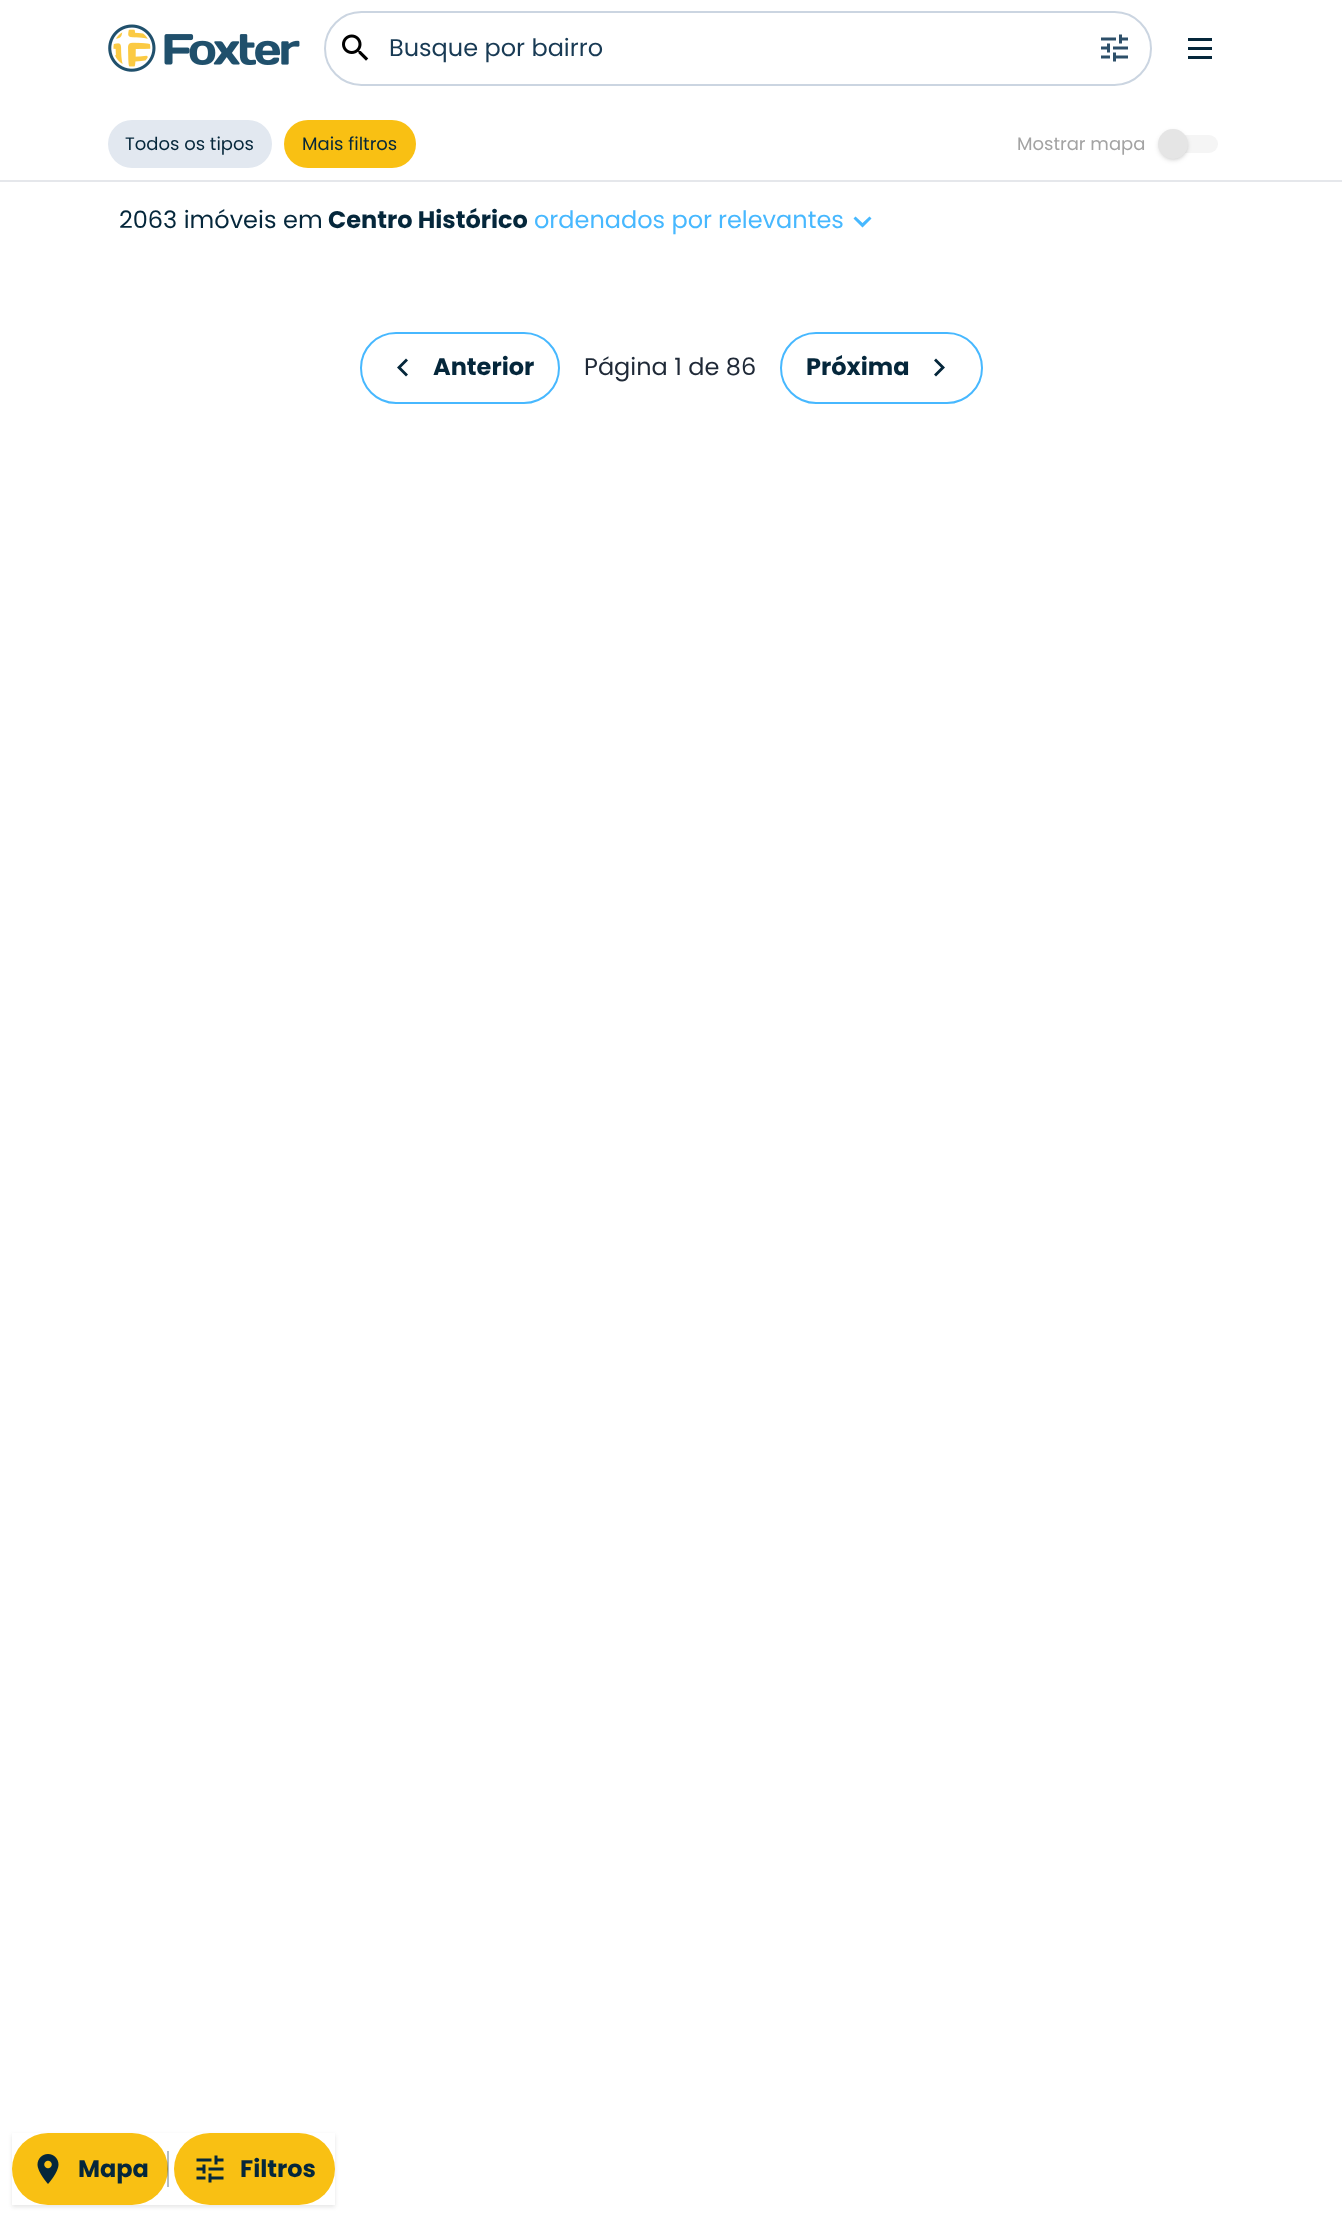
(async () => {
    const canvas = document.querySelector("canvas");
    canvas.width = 1342;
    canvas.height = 2216;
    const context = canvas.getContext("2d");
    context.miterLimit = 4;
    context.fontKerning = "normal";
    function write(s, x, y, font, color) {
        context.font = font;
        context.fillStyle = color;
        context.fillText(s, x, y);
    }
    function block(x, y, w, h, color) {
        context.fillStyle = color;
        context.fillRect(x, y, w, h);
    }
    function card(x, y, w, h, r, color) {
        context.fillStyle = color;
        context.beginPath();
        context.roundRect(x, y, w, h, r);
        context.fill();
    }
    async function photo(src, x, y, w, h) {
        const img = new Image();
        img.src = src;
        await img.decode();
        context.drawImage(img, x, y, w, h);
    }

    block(0, 0, 1342, 2216, "rgb(255, 255, 255)");
    await photo("media/1.png", 108, 24, 192, 48);
    context.beginPath();
    context.roundRect(325, 12, 826, 73, 36.5);
    context.strokeStyle = "rgb(203, 213, 225)";
    context.lineWidth = 2;
    context.stroke();
    await photo("media/2.png", 342, 34, 27, 27);
    write("Busque por bairro", 389, 56, "24px Poppins", "rgb(24, 58, 84)");
    await photo("media/3.png", 1101, 34, 27, 28);
    block(1188, 38, 24, 3, "rgb(5, 39, 59)");
    block(1188, 47, 24, 3, "rgb(5, 39, 59)");
    block(1188, 56, 24, 3, "rgb(5, 39, 59)");
    block(0, 180, 1342, 2, "rgb(229, 231, 235)");
    card(108, 120, 164, 48, 24, "rgb(226, 232, 240)");
    write("Todos os tipos", 125, 150, "18px Poppins", "rgb(5, 39, 59)");
    card(284, 120, 132, 48, 24, "rgb(249, 192, 19)");
    write("Mais filtros", 302, 150, "18px Poppins", "rgb(5, 39, 59)");
    write("Mostrar mapa", 1017, 150, "18px Poppins", "rgb(163, 163, 163)");
    card(1164, 135, 54, 18, 9, "rgb(245, 245, 245)");
    context.fillStyle = "rgba(0, 0, 0, 0.1)";
    context.filter = "blur(1.5px)";
    context.beginPath();
    context.roundRect(1160, 132, 27, 27, 13.5);
    context.fill();
    context.filter = "none";
    context.filter = "blur(2px)";
    context.beginPath();
    context.roundRect(1158, 131, 30, 30, 15);
    context.fill();
    context.filter = "none";
    context.fillStyle = "rgb(229, 229, 229)";
    context.beginPath();
    context.arc(1173, 144, 15, 0, Math.PI * 2);
    context.fill();
    context.save();
    context.beginPath();
    context.moveTo(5, 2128);
    context.lineTo(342, 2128);
    context.lineTo(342, 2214);
    context.lineTo(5, 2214);
    context.closePath();
    context.moveTo(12, 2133);
    context.lineTo(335, 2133);
    context.lineTo(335, 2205);
    context.lineTo(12, 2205);
    context.closePath();
    context.clip("evenodd");
    context.fillStyle = "rgba(0, 0, 0, 0.1)";
    context.filter = "blur(2px)";
    context.beginPath();
    context.rect(12, 2135, 323, 72);
    context.fill();
    context.filter = "none";
    context.restore();
    card(12, 2133, 156, 72, 36, "rgb(249, 192, 19)");
    block(167, 2151, 2, 36, "rgba(5, 39, 59, 0.3)");
    await photo("media/4.png", 37, 2154, 22, 30);
    write("Mapa", 78, 2177, "bold 24px Poppins", "rgb(5, 39, 59)");
    card(174, 2133, 161, 72, 36, "rgb(249, 192, 19)");
    await photo("media/5.png", 196, 2155, 28, 28);
    write("Filtros", 240, 2177, "bold 24px Poppins", "rgb(5, 39, 59)");
    write("2063 imóveis", 119, 228, "24px Poppins", "rgb(5, 39, 59)");
    write("em", 283, 228, "24px Poppins", "rgb(5, 39, 59)");
    write("Centro Histórico", 328, 228, "bold 24px Poppins", "rgb(5, 39, 59)");
    write("ordenados por", 534, 228, "24px Poppins", "rgb(71, 184, 255)");
    write("relevantes", 718, 228, "24px Poppins", "rgb(71, 184, 255)");
    context.beginPath();
    context.moveTo(871.5, 218.5);
    context.lineTo(869.5, 216.5);
    context.lineTo(862.5, 223);
    context.lineTo(855.5, 216.5);
    context.lineTo(853.5, 218.5);
    context.lineTo(862.5, 227.5);
    context.closePath();
    context.fill();
    context.beginPath();
    context.roundRect(361, 333, 198, 70, 35);
    context.strokeStyle = "rgb(71, 184, 255)";
    context.stroke();
    context.fillStyle = "rgb(5, 39, 59)";
    context.beginPath();
    context.moveTo(406, 376.5);
    context.lineTo(408, 374.5);
    context.lineTo(401, 367.5);
    context.lineTo(408, 360.5);
    context.lineTo(406, 358.5);
    context.lineTo(397, 367.5);
    context.closePath();
    context.fill();
    write("Anterior", 433, 375, "bold 24px Poppins", "rgb(5, 39, 59)");
    write("Página 1 de 86", 584, 375, "24px Poppins", "rgb(31, 41, 55)");
    context.beginPath();
    context.roundRect(781, 333, 201, 70, 35);
    context.stroke();
    write("Próxima", 806, 375, "bold 24px Poppins", "rgb(5, 39, 59)");
    context.beginPath();
    context.moveTo(936, 358.5);
    context.lineTo(934, 360.5);
    context.lineTo(941, 367.5);
    context.lineTo(934, 374.5);
    context.lineTo(936, 376.5);
    context.lineTo(945, 367.5);
    context.closePath();
    context.fill();
})();
